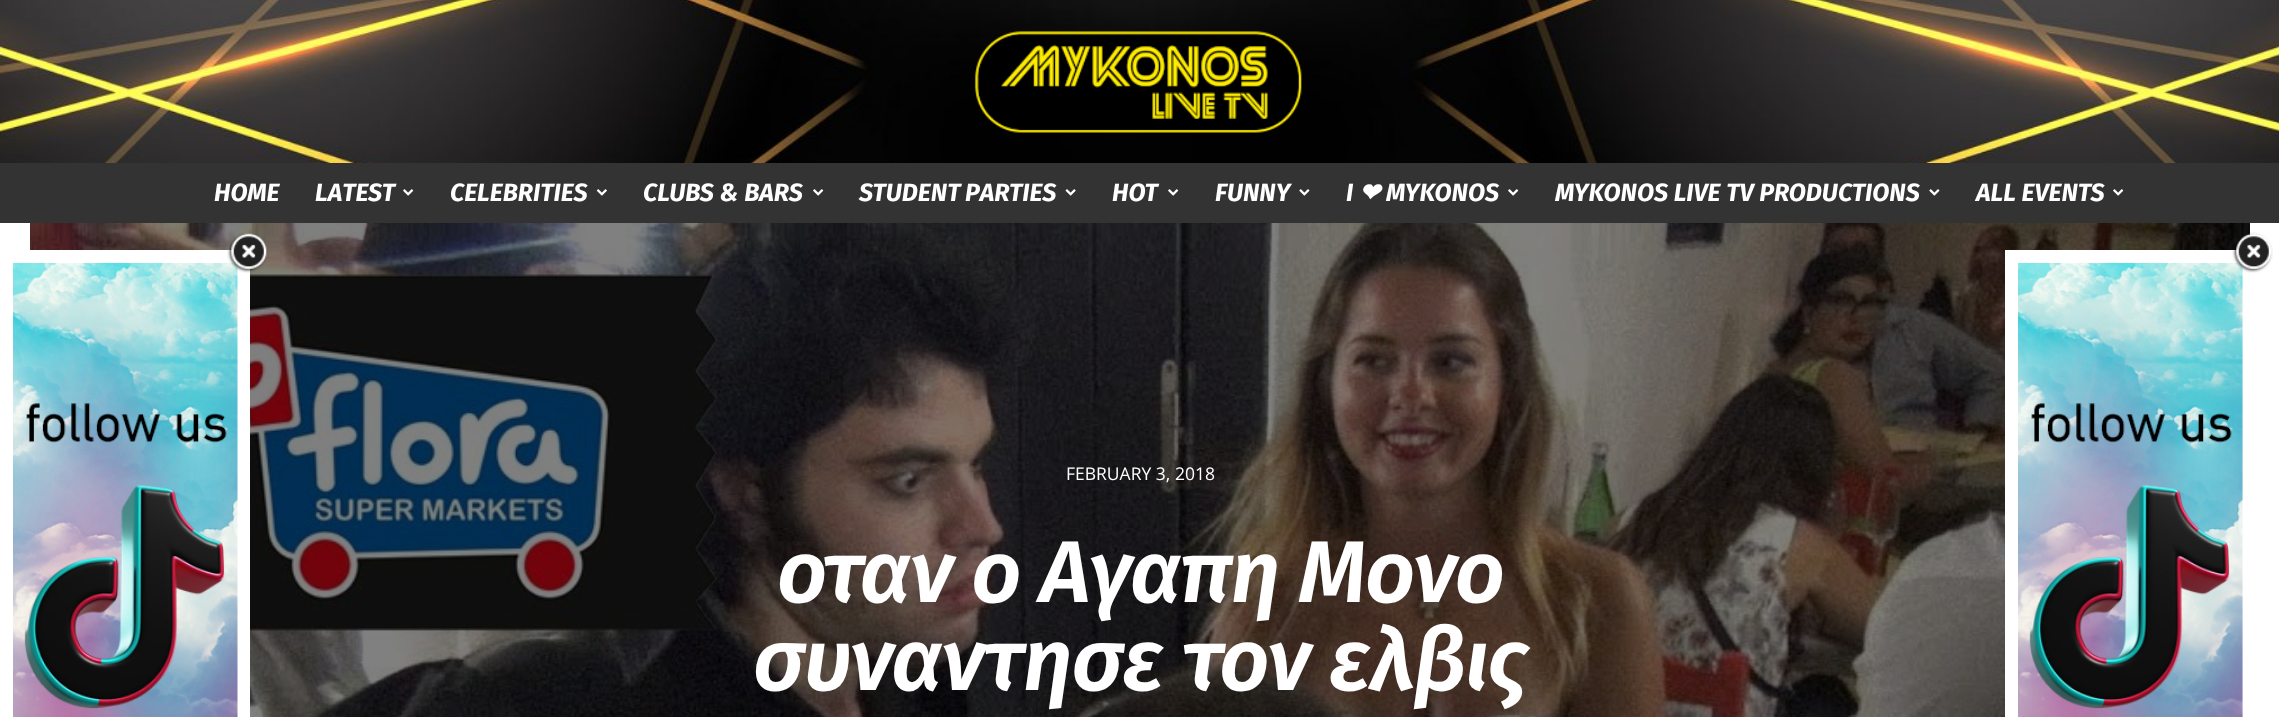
(async () => {
    const canvas = document.querySelector("canvas");
    canvas.width = 2279;
    canvas.height = 717;
    const context = canvas.getContext("2d");
    context.miterLimit = 4;
    context.fontKerning = "normal";
    function write(s, x, y, font, color) {
        context.font = font;
        context.fillStyle = color;
        context.fillText(s, x, y);
    }
    function block(x, y, w, h, color) {
        context.fillStyle = color;
        context.fillRect(x, y, w, h);
    }
    async function photo(src, x, y, w, h) {
        const img = new Image();
        img.src = src;
        await img.decode();
        context.drawImage(img, x, y, w, h);
    }

    block(0, 0, 2279, 717, "rgb(255, 255, 255)");
    await photo("media/9.png", 30, 223, 2220, 494);
    block(30, 250, 220, 467, "rgb(255, 255, 255)");
    await photo("media/2.png", 13, 263, 225, 454);
    await photo("media/1.png", 227, 233, 41, 40);
    await photo("media/3.png", 0, 0, 2279, 163);
    await photo("media/4.png", 974, 31, 328, 102);
    block(0, 163, 2279, 60, "rgb(51, 51, 51)");
    write("HOME", 214, 201, "italic bold 25px Fira Sans", "rgb(255, 255, 255)");
    write("LATEST", 315, 201, "italic bold 25px Fira Sans", "rgb(255, 255, 255)");
    await photo("media/5.png", 403, 189, 11, 7);
    write("CELEBRITIES", 450, 201, "italic bold 25px Fira Sans", "rgb(255, 255, 255)");
    await photo("media/6.png", 596, 189, 11, 7);
    write("CLUBS & BARS", 643, 201, "italic bold 25px Fira Sans", "rgb(255, 255, 255)");
    await photo("media/5.png", 813, 189, 11, 7);
    context.wordSpacing = "-1px";
    write("STUDENT PARTIES", 859, 201, "italic bold 25px Fira Sans", "rgb(255, 255, 255)");
    await photo("media/7.png", 1065, 189, 11, 7);
    context.wordSpacing = "0px";
    write("HOT", 1112, 201, "italic bold 25px Fira Sans", "rgb(255, 255, 255)");
    await photo("media/5.png", 1168, 189, 11, 7);
    write("FUNNY", 1215, 201, "italic bold 25px Fira Sans", "rgb(255, 255, 255)");
    await photo("media/8.png", 1299, 189, 11, 7);
    write("I", 1346, 201, "italic bold 25px Fira Sans", "rgb(255, 255, 255)");
    write("❤", 1359, 201, "italic bold 25px DejaVu Sans", "rgb(255, 255, 255)");
    write("MYKONOS", 1386, 201, "italic bold 25px Fira Sans", "rgb(255, 255, 255)");
    await photo("media/5.png", 1508, 189, 11, 7);
    write("MYKONOS LIVE TV PRODUCTIONS", 1555, 201, "italic bold 25px Fira Sans", "rgb(255, 255, 255)");
    await photo("media/8.png", 1929, 189, 11, 7);
    write("ALL EVENTS", 1976, 201, "italic bold 25px Fira Sans", "rgb(255, 255, 255)");
    await photo("media/5.png", 2113, 189, 11, 7);
    write("FEBRUARY 3, 2018", 1066, 480, "17.5px Open Sans", "rgb(255, 255, 255)");
    context.letterSpacing = "-1.25px";
    write("οταν ο Αγαπη Μονο", 777, 602, "italic 600 87.5px Fira Sans", "rgb(255, 255, 255)");
    write("συναντησε τον ελβις", 753, 690, "italic 600 87.5px Fira Sans", "rgb(255, 255, 255)");
    block(2005, 250, 245, 467, "rgb(255, 255, 255)");
    await photo("media/11.png", 2018, 263, 225, 454);
    await photo("media/10.png", 2232, 232, 41, 41);
})();
